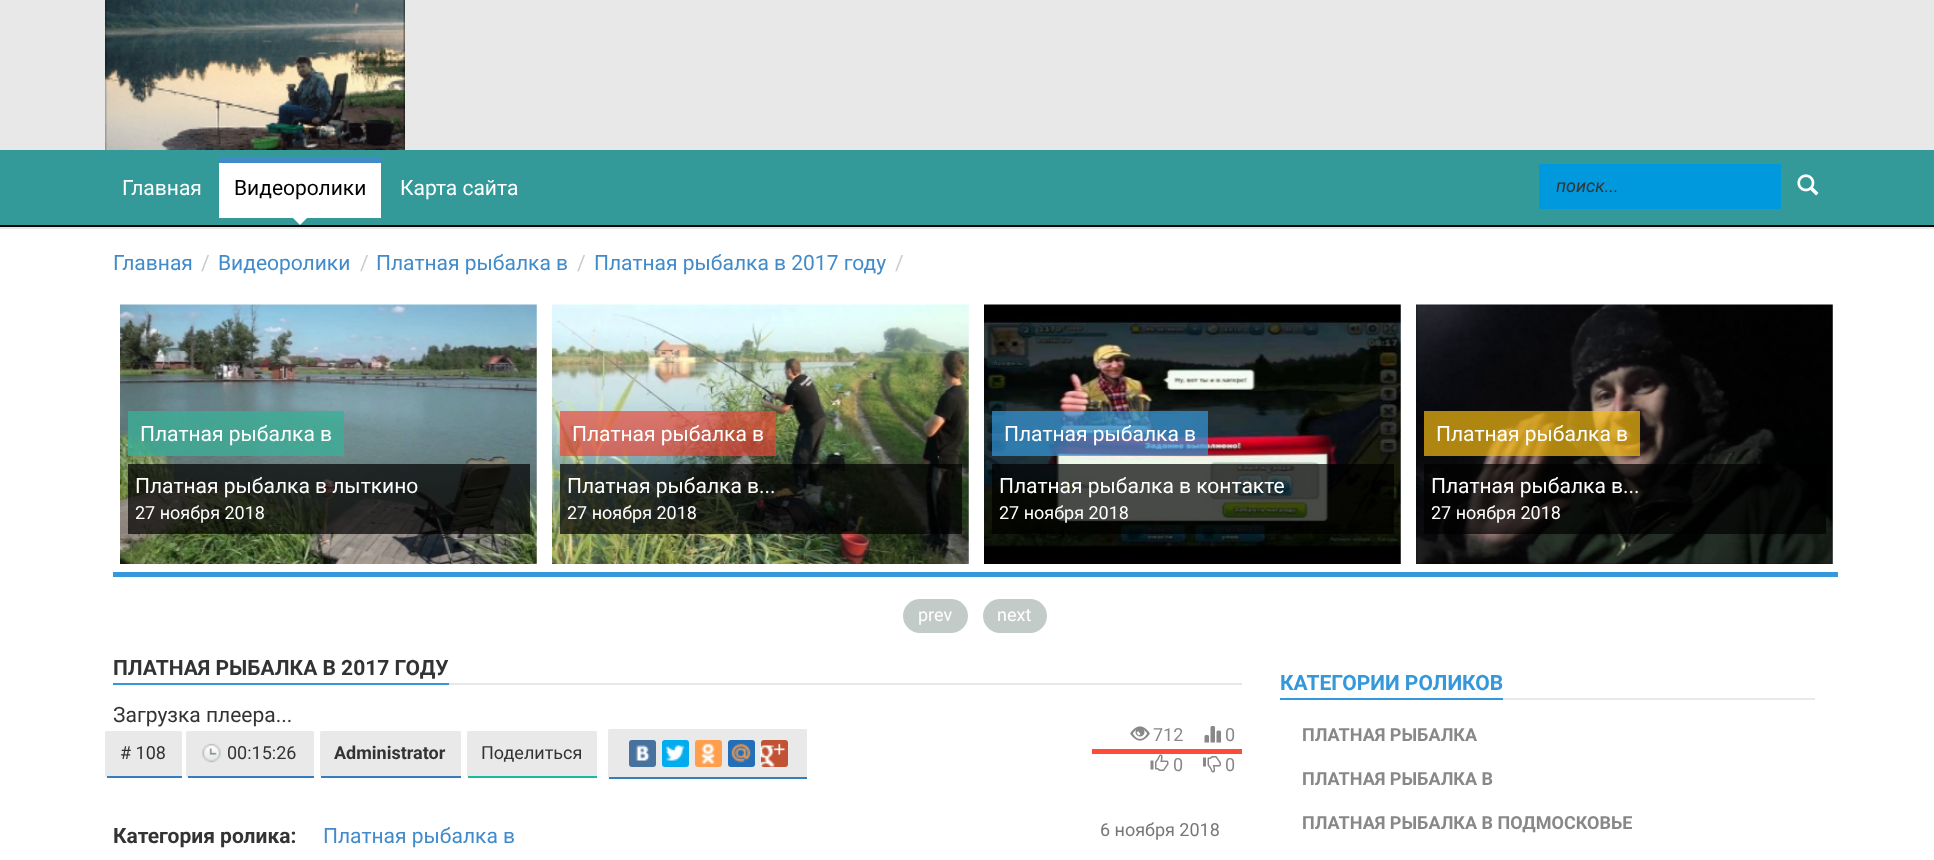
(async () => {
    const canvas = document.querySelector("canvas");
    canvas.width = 1934;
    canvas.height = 860;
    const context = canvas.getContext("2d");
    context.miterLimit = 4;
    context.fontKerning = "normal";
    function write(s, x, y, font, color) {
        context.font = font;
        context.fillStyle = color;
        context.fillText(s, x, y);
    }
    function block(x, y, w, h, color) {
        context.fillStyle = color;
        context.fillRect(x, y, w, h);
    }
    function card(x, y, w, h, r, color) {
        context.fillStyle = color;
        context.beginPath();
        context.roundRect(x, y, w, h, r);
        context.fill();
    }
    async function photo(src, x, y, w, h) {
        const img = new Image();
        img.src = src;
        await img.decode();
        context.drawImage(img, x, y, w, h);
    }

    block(0, 0, 1934, 860, "rgb(255, 255, 255)");
    block(0, 0, 1934, 150, "rgb(232, 232, 232)");
    block(0, 227, 1934, 2, "rgb(231, 231, 231)");
    await photo("media/1.png", 105, 0, 300, 150);
    block(0, 150, 1934, 75, "rgb(51, 153, 153)");
    block(0, 225, 1934, 2, "rgb(8, 8, 8)");
    write("Главная", 122, 195, "21px Roboto", "rgb(255, 255, 255)");
    block(219, 163, 162, 55, "rgb(255, 255, 255)");
    block(219, 158, 162, 5, "rgb(66, 139, 202)");
    write("Видеоролики", 234, 195, "21px Roboto", "rgb(0, 0, 0)");
    context.fillStyle = "rgb(255, 255, 255)";
    context.beginPath();
    context.moveTo(292.5, 217.5);
    context.lineTo(307.5, 217.5);
    context.lineTo(300, 225);
    context.closePath();
    context.fill();
    write("Карта сайта", 400, 195, "21px Roboto", "rgb(255, 255, 255)");
    block(1539, 164, 242, 45, "rgb(0, 153, 222)");
    write("поиск...", 1556, 192, "italic 18px Roboto", "rgb(51, 51, 51)");
    await photo("media/2.png", 1797, 174, 22, 22);
    write("Главная", 113, 270, "21px Roboto", "rgb(66, 139, 202)");
    write("/", 201, 270, "21px Roboto", "rgb(204, 204, 204)");
    write("Видеоролики", 218, 270, "21px Roboto", "rgb(66, 139, 202)");
    write("/", 360, 270, "21px Roboto", "rgb(204, 204, 204)");
    write("Платная рыбалка в", 376, 270, "21px Roboto", "rgb(66, 139, 202)");
    write("/", 577, 270, "21px Roboto", "rgb(204, 204, 204)");
    write("Платная рыбалка в 2017 году", 594, 270, "21px Roboto", "rgb(66, 139, 202)");
    write("/", 895, 270, "21px Roboto", "rgb(204, 204, 204)");
    block(113, 572, 1725, 5, "rgb(52, 152, 219)");
    await photo("media/3.png", 120, 304, 417, 260);
    block(128, 411, 216, 45, "rgba(60, 174, 151, 0.8)");
    write("Платная рыбалка в", 140, 441, "21px Roboto", "rgb(255, 255, 255)");
    block(128, 464, 402, 70, "rgba(0, 0, 0, 0.7)");
    write("Платная рыбалка в лыткино", 135, 493, "21px Roboto", "rgb(255, 255, 255)");
    write("27 ноября 2018", 135, 519, "18px Roboto", "rgb(255, 255, 255)");
    await photo("media/4.png", 552, 304, 417, 260);
    block(560, 411, 216, 45, "rgba(231, 76, 60, 0.7)");
    write("Платная рыбалка в", 572, 441, "21px Roboto", "rgb(255, 255, 255)");
    block(560, 464, 402, 70, "rgba(0, 0, 0, 0.7)");
    write("Платная рыбалка в...", 567, 493, "21px Roboto", "rgb(255, 255, 255)");
    write("27 ноября 2018", 567, 519, "18px Roboto", "rgb(255, 255, 255)");
    await photo("media/5.png", 984, 304, 417, 260);
    block(992, 411, 216, 45, "rgba(52, 152, 219, 0.7)");
    write("Платная рыбалка в", 1004, 441, "21px Roboto", "rgb(255, 255, 255)");
    block(992, 464, 402, 70, "rgba(0, 0, 0, 0.7)");
    write("Платная рыбалка в контакте", 999, 493, "21px Roboto", "rgb(255, 255, 255)");
    write("27 ноября 2018", 999, 519, "18px Roboto", "rgb(255, 255, 255)");
    await photo("media/6.png", 1416, 304, 417, 260);
    block(1424, 411, 216, 45, "rgba(243, 186, 18, 0.7)");
    write("Платная рыбалка в", 1436, 441, "21px Roboto", "rgb(255, 255, 255)");
    block(1424, 464, 402, 70, "rgba(0, 0, 0, 0.7)");
    write("Платная рыбалка в...", 1431, 493, "21px Roboto", "rgb(255, 255, 255)");
    write("27 ноября 2018", 1431, 519, "18px Roboto", "rgb(255, 255, 255)");
    card(903, 599, 65, 34, 17, "rgb(195, 203, 200)");
    write("prev", 918, 621, "18px Roboto", "rgb(255, 255, 255)");
    card(983, 599, 64, 34, 17, "rgb(195, 203, 200)");
    write("next", 997, 621, "18px Roboto", "rgb(255, 255, 255)");
    block(449, 683, 793, 2, "rgb(232, 232, 232)");
    block(113, 683, 336, 2, "rgb(52, 152, 219)");
    write("ПЛАТНАЯ РЫБАЛКА В 2017 ГОДУ", 113, 675, "bold 21px Roboto", "rgb(51, 51, 51)");
    write("Загрузка плеера...", 113, 722, "21px Roboto", "rgb(51, 51, 51)");
    card(105, 731, 77, 46, 1.5, "rgb(233, 233, 233)");
    block(107, 776, 75, 2, "rgb(53, 126, 189)");
    write("# 108", 120, 759, "18px Roboto", "rgb(51, 51, 51)");
    card(186, 731, 128, 46, 1.5, "rgb(233, 233, 233)");
    block(188, 776, 126, 2, "rgb(53, 126, 189)");
    await photo("media/7.png", 202, 743, 19, 20);
    write("00:15:26", 227, 759, "18px Roboto", "rgb(51, 51, 51)");
    card(320, 731, 141, 46, 1.5, "rgb(233, 233, 233)");
    block(321, 776, 140, 2, "rgb(53, 126, 189)");
    write("Administrator", 334, 759, "bold 18px Roboto", "rgb(51, 51, 51)");
    card(467, 731, 130, 46, 1.5, "rgb(233, 233, 233)");
    block(468, 776, 129, 2, "rgb(24, 187, 156)");
    write("Поделиться", 481, 759, "18px Roboto", "rgb(51, 51, 51)");
    card(608, 729, 199, 50, 1.5, "rgb(233, 233, 233)");
    block(609, 777, 198, 2, "rgb(53, 126, 189)");
    card(629, 740, 27, 27, 3, "rgb(72, 114, 158)");
    await photo("media/8.png", 635, 745, 15, 16);
    card(662, 740, 27, 27, 3, "rgb(0, 172, 237)");
    await photo("media/9.png", 665, 745, 20, 16);
    card(695, 740, 27, 27, 3, "rgb(255, 159, 77)");
    await photo("media/10.png", 701, 743, 14, 21);
    card(728, 740, 27, 27, 3, "rgb(34, 110, 183)");
    await photo("media/11.png", 731, 743, 20, 20);
    card(761, 740, 27, 27, 3, "rgb(194, 82, 52)");
    await photo("media/12.png", 760, 743, 25, 24);
    await photo("media/13.png", 1130, 726, 20, 15);
    write("712", 1153, 741, "18px Roboto", "rgb(136, 136, 136)");
    await photo("media/14.png", 1204, 726, 17, 17);
    write("0", 1225, 741, "18px Roboto", "rgb(136, 136, 136)");
    block(1092, 749, 150, 5, "rgb(255, 76, 58)");
    await photo("media/15.png", 1150, 754, 19, 17);
    write("0", 1173, 771, "18px Roboto", "rgb(136, 136, 136)");
    await photo("media/16.png", 1203, 756, 18, 17);
    write("0", 1225, 771, "18px Roboto", "rgb(136, 136, 136)");
    write("Категория ролика:", 113, 843, "bold 21px Roboto", "rgb(51, 51, 51)");
    write("Платная рыбалка в", 323, 843, "21px Roboto", "rgb(66, 139, 202)");
    write("6 ноября 2018", 1100, 836, "18px Roboto", "rgb(119, 119, 119)");
    block(1503, 698, 312, 2, "rgb(232, 232, 232)");
    block(1280, 698, 223, 2, "rgb(52, 152, 219)");
    write("КАТЕГОРИИ РОЛИКОВ", 1280, 690, "bold 21px Roboto", "rgb(52, 152, 219)");
    write("ПЛАТНАЯ РЫБАЛКА", 1302, 741, "bold 18px Roboto", "rgb(136, 136, 136)");
    write("ПЛАТНАЯ РЫБАЛКА В", 1302, 785, "bold 18px Roboto", "rgb(136, 136, 136)");
    write("ПЛАТНАЯ РЫБАЛКА В ПОДМОСКОВЬЕ", 1302, 829, "bold 18px Roboto", "rgb(136, 136, 136)");
})();
